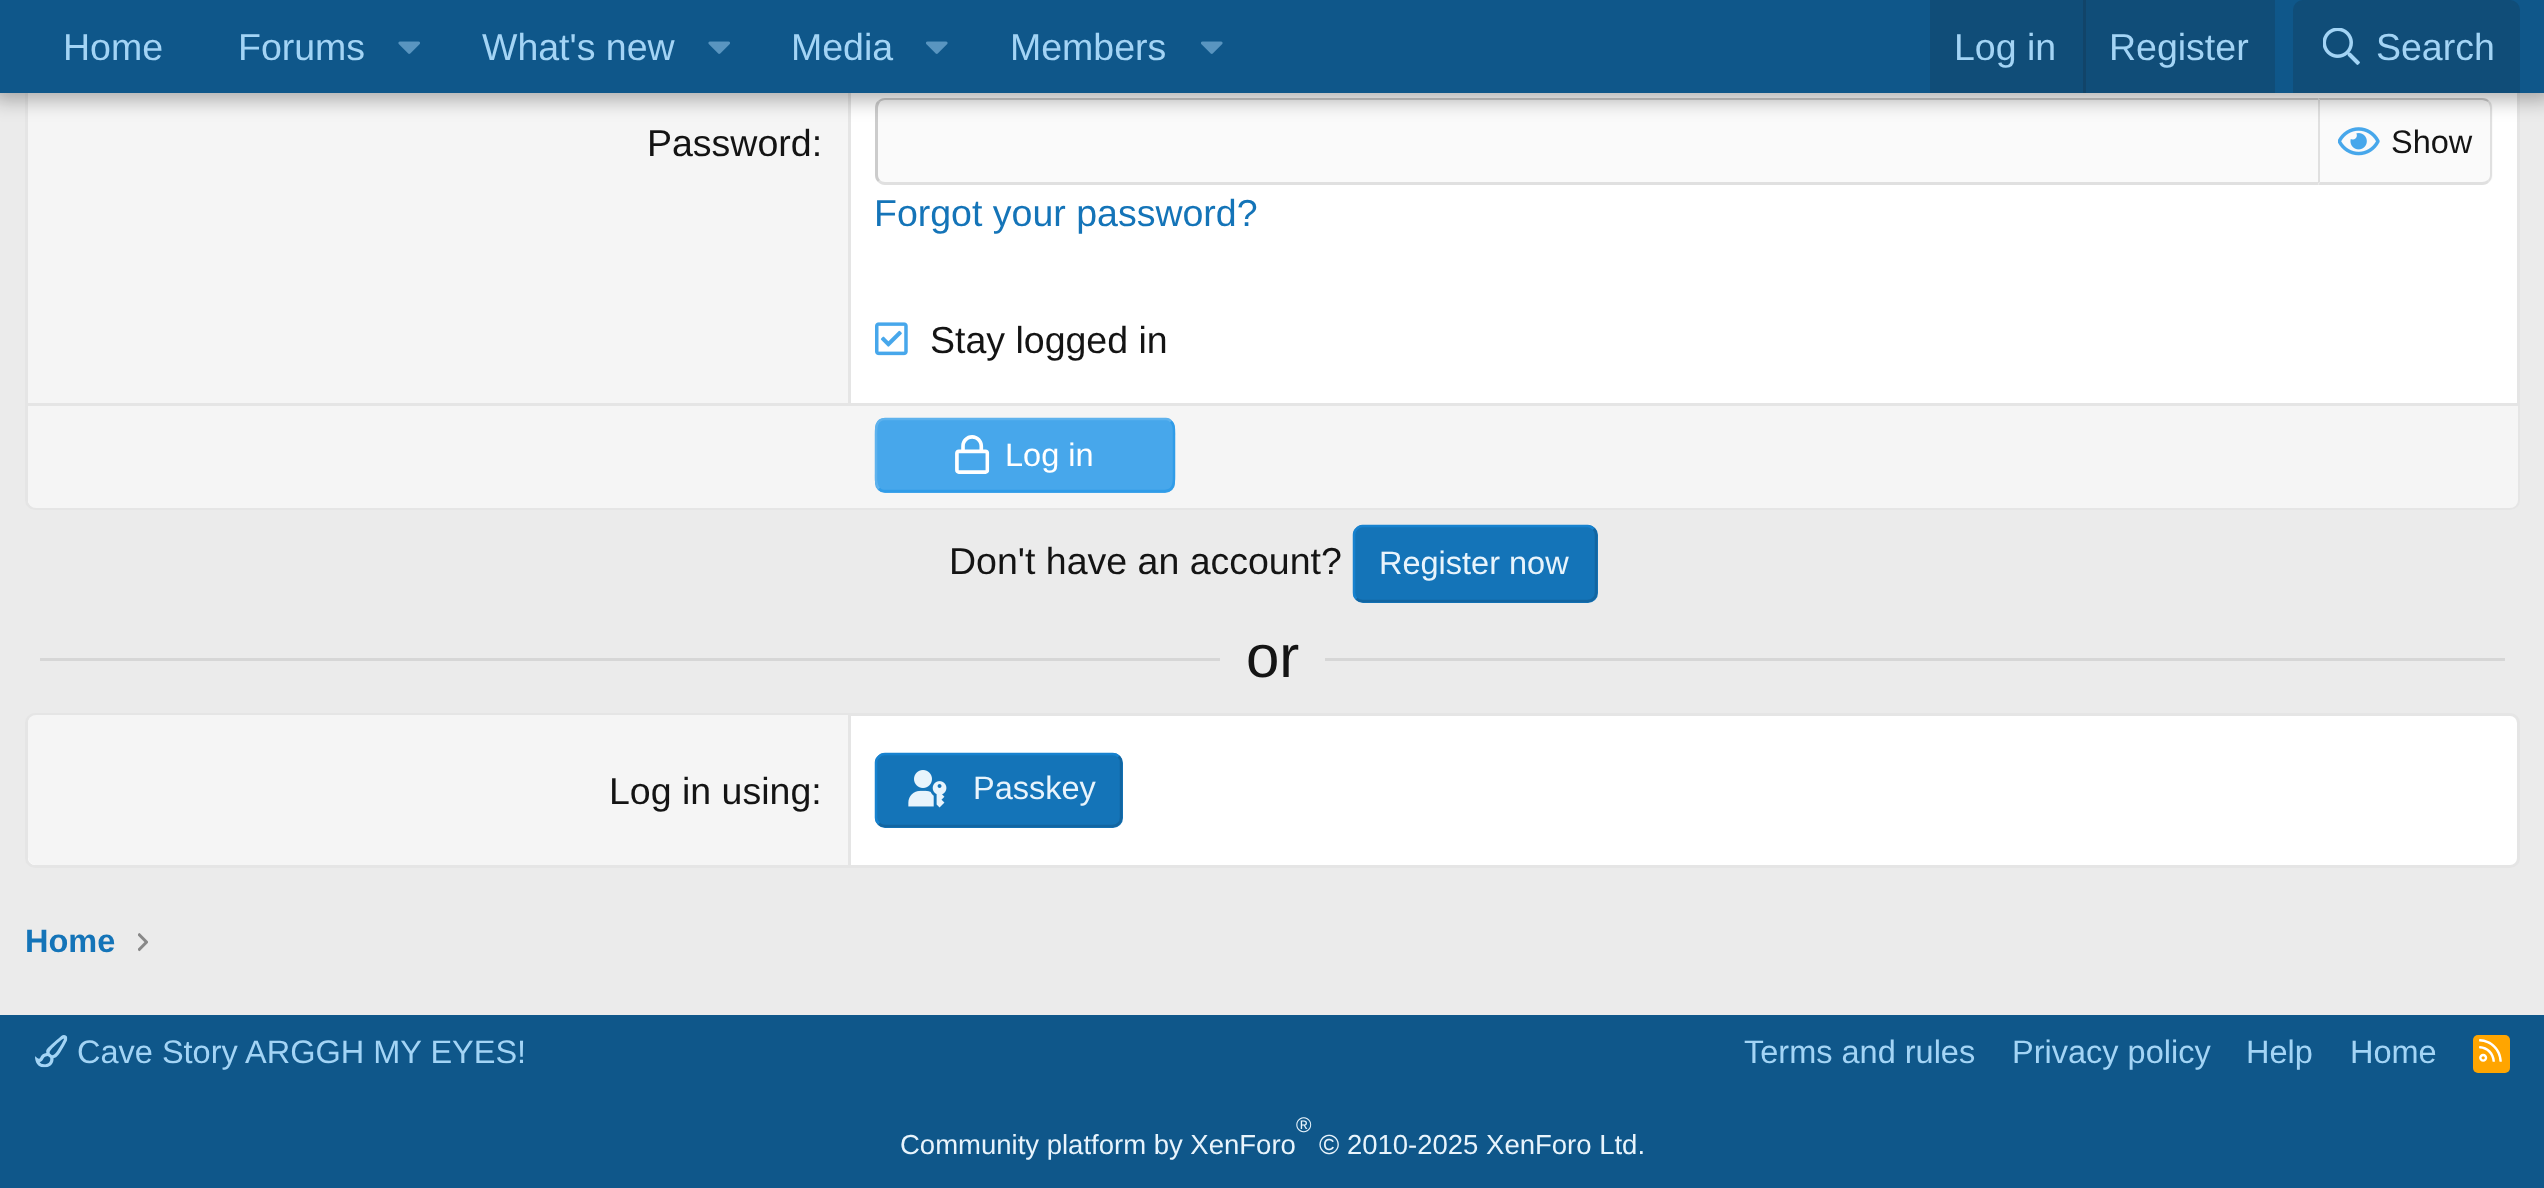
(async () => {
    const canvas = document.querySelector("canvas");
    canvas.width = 2544;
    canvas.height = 1188;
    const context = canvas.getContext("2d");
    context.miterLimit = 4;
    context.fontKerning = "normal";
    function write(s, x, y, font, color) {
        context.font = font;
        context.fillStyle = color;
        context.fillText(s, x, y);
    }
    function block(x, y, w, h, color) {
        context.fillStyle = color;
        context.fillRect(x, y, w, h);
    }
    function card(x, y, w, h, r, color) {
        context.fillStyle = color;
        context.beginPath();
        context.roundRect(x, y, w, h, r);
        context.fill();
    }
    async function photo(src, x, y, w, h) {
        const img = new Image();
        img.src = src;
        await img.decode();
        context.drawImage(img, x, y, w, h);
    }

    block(0, 0, 2544, 1188, "rgb(235, 235, 235)");
    context.fillStyle = "rgb(255, 255, 255)";
    context.beginPath();
    context.roundRect(26.5, -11.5, 2492, 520, 8.5);
    context.fill();
    context.strokeStyle = "rgb(229, 229, 229)";
    context.lineWidth = 3;
    context.stroke();
    block(28, 93, 820, 310, "rgb(245, 245, 245)");
    block(848, 93, 3, 310, "rgb(229, 229, 229)");
    context.fillStyle = "rgb(250, 250, 250)";
    context.beginPath();
    context.roundRect(875, 98, 1443, 87, [10, 0, 0, 10]);
    context.fill();
    context.fillStyle = "rgb(204, 204, 204)";
    context.beginPath();
    context.moveTo(885, 98);
    context.lineTo(2318, 98);
    context.lineTo(2318, 100);
    context.lineTo(885, 100);
    context.bezierCurveTo(883, 100, 881, 101, 880, 102);
    context.lineTo(878, 101);
    context.bezierCurveTo(880, 99, 882, 98, 885, 98);
    context.closePath();
    context.fill();
    context.fillStyle = "rgb(224, 224, 224)";
    context.beginPath();
    context.moveTo(2318, 185);
    context.lineTo(2318, 182);
    context.lineTo(885, 182);
    context.bezierCurveTo(883, 182, 881, 181, 880, 180);
    context.lineTo(878, 182);
    context.bezierCurveTo(880, 184, 882, 185, 885, 185);
    context.closePath();
    context.fill();
    context.fillStyle = "rgb(204, 204, 204)";
    context.beginPath();
    context.moveTo(880, 180);
    context.lineTo(878, 182);
    context.bezierCurveTo(876, 180, 875, 178, 875, 175);
    context.lineTo(875, 108);
    context.bezierCurveTo(875, 105, 876, 102, 878, 101);
    context.lineTo(880, 102);
    context.bezierCurveTo(879, 104, 878, 106, 878, 108);
    context.lineTo(878, 175);
    context.bezierCurveTo(878, 177, 879, 179, 880, 180);
    context.closePath();
    context.fill();
    context.fillStyle = "rgb(250, 250, 250)";
    context.beginPath();
    context.roundRect(2318, 98, 175, 87, [0, 10, 10, 0]);
    context.fill();
    context.fillStyle = "rgb(204, 204, 204)";
    context.beginPath();
    context.moveTo(2318, 98);
    context.lineTo(2320, 100);
    context.lineTo(2482, 100);
    context.bezierCurveTo(2484, 100, 2486, 101, 2488, 102);
    context.lineTo(2489, 101);
    context.bezierCurveTo(2488, 99, 2485, 98, 2482, 98);
    context.closePath();
    context.fill();
    context.fillStyle = "rgb(224, 224, 224)";
    context.beginPath();
    context.moveTo(2489, 101);
    context.bezierCurveTo(2491, 102, 2492, 105, 2492, 108);
    context.lineTo(2492, 175);
    context.bezierCurveTo(2492, 178, 2491, 180, 2489, 182);
    context.lineTo(2488, 180);
    context.bezierCurveTo(2489, 179, 2490, 177, 2490, 175);
    context.lineTo(2490, 108);
    context.bezierCurveTo(2490, 106, 2489, 104, 2488, 102);
    context.closePath();
    context.fill();
    context.beginPath();
    context.moveTo(2318, 185);
    context.lineTo(2482, 185);
    context.bezierCurveTo(2485, 185, 2488, 184, 2489, 182);
    context.lineTo(2488, 180);
    context.bezierCurveTo(2486, 181, 2484, 182, 2482, 182);
    context.lineTo(2320, 182);
    context.closePath();
    context.fill();
    context.beginPath();
    context.moveTo(2320, 100);
    context.lineTo(2318, 98);
    context.lineTo(2318, 184);
    context.lineTo(2320, 182);
    context.closePath();
    context.fill();
    await photo("media/4.png", 2338, 127, 42, 29);
    context.fillStyle = "rgba(0, 0, 0, 0.3)";
    context.filter = "blur(10px)";
    context.beginPath();
    context.rect(-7, -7, 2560, 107);
    context.fill();
    context.filter = "none";
    block(0, 0, 2544, 93, "rgb(15, 87, 138)");
    write("Home", 63, 60, "37.5px Liberation Sans", "rgb(163, 212, 245)");
    write("Forums", 238, 60, "37.5px Liberation Sans", "rgb(163, 212, 245)");
    await photo("media/1.png", 398, 41, 22, 13);
    write("What's new", 482, 60, "37.5px Liberation Sans", "rgb(163, 212, 245)");
    await photo("media/1.png", 708, 41, 22, 13);
    write("Media", 791, 60, "37.5px Liberation Sans", "rgb(163, 212, 245)");
    await photo("media/2.png", 926, 41, 22, 13);
    write("Members", 1010, 60, "37.5px Liberation Sans", "rgb(163, 212, 245)");
    await photo("media/2.png", 1201, 41, 22, 13);
    block(1930, 0, 345, 93, "rgb(16, 77, 120)");
    write("Log in", 1954, 60, "37.5px Liberation Sans", "rgb(163, 212, 245)");
    block(2083, 0, 3, 93, "rgb(17, 68, 105)");
    write("Register", 2109, 60, "37.5px Liberation Sans", "rgb(163, 212, 245)");
    context.fillStyle = "rgb(16, 77, 120)";
    context.beginPath();
    context.roundRect(2293, 0, 227, 93, [10, 10, 0, 0]);
    context.fill();
    await photo("media/3.png", 2323, 28, 37, 37);
    write("Search", 2376, 60, "37.5px Liberation Sans", "rgb(163, 212, 245)");
    write("Password:", 647, 156, "37.5px Liberation Sans", "rgb(20, 20, 20)");
    write("Show", 2391, 153, "32.5px Liberation Sans", "rgb(20, 20, 20)");
    write("Forgot your password?", 874, 226, "37.5px Liberation Sans", "rgb(20, 116, 184)");
    await photo("media/5.png", 875, 322, 33, 34);
    write("Stay logged in", 930, 353, "37.5px Liberation Sans", "rgb(20, 20, 20)");
    context.fillStyle = "rgb(245, 245, 245)";
    context.beginPath();
    context.roundRect(28, 403, 2490, 105, [0, 0, 8, 8]);
    context.fill();
    block(28, 403, 2490, 3, "rgb(229, 229, 229)");
    card(875, 418, 300, 75, 10, "rgb(71, 167, 235)");
    context.beginPath();
    context.moveTo(1171, 421.5);
    context.bezierCurveTo(1175, 425, 1174, 432, 1174, 436.5);
    context.lineTo(1174, 473.5);
    context.bezierCurveTo(1174, 480, 1175, 491, 1165, 491);
    context.lineTo(884, 491);
    context.bezierCurveTo(882, 491, 880, 490, 879, 488.5);
    context.strokeStyle = "rgb(48, 156, 232)";
    context.lineWidth = 2.5;
    context.stroke();
    context.beginPath();
    context.moveTo(879, 488.5);
    context.bezierCurveTo(875, 485, 876, 478, 876, 473.5);
    context.lineTo(876, 436.5);
    context.bezierCurveTo(876, 430, 875, 419, 885, 419);
    context.lineTo(1166, 419);
    context.bezierCurveTo(1168, 419, 1170, 420, 1171, 421.5);
    context.strokeStyle = "rgb(94, 178, 237)";
    context.stroke();
    await photo("media/6.png", 955, 435, 35, 39);
    write("Log in", 1005, 466, "32.5px Liberation Sans", "rgb(255, 255, 255)");
    write("Don't have an account?", 949, 574, "37.5px Liberation Sans", "rgb(20, 20, 20)");
    card(1353, 525, 245, 78, 10, "rgb(20, 116, 184)");
    context.beginPath();
    context.moveTo(1593.5, 529);
    context.bezierCurveTo(1595.5, 530.5, 1596, 532.5, 1596, 535);
    context.lineTo(1596, 592.5);
    context.bezierCurveTo(1596, 595, 1595.5, 597, 1593.5, 598.5);
    context.bezierCurveTo(1592, 600.5, 1590, 601, 1587.5, 601);
    context.lineTo(1362.5, 601);
    context.bezierCurveTo(1360, 601, 1358, 600.5, 1356.5, 598.5);
    context.strokeStyle = "rgb(18, 101, 161)";
    context.stroke();
    context.beginPath();
    context.moveTo(1356.5, 598.5);
    context.bezierCurveTo(1354.5, 597, 1354, 595, 1354, 592.5);
    context.lineTo(1354, 535);
    context.bezierCurveTo(1354, 532.5, 1354.5, 530.5, 1356.5, 529);
    context.bezierCurveTo(1358, 527, 1360, 526, 1362.5, 526);
    context.lineTo(1587.5, 526);
    context.bezierCurveTo(1590, 526, 1592, 527, 1593.5, 529);
    context.strokeStyle = "rgb(23, 130, 207)";
    context.stroke();
    write("Register now", 1379, 574, "32.5px Liberation Sans", "rgb(232, 244, 252)");
    block(40, 658, 1180, 3, "rgb(214, 214, 214)");
    write("or", 1246, 677, "60px Liberation Sans", "rgb(20, 20, 20)");
    block(1325, 658, 1180, 3, "rgb(214, 214, 214)");
    context.fillStyle = "rgb(255, 255, 255)";
    context.beginPath();
    context.roundRect(26.5, 714.5, 2492, 152, 8.5);
    context.fill();
    context.strokeStyle = "rgb(229, 229, 229)";
    context.lineWidth = 3;
    context.stroke();
    context.fillStyle = "rgb(245, 245, 245)";
    context.beginPath();
    context.roundRect(28, 715, 822, 150, [8, 0, 0, 8]);
    context.fill();
    block(848, 715, 3, 150, "rgb(229, 229, 229)");
    write("Log in using:", 609, 804, "37.5px Liberation Sans", "rgb(20, 20, 20)");
    card(875, 753, 248, 75, 10, "rgb(20, 116, 184)");
    context.beginPath();
    context.moveTo(1118.5, 756.5);
    context.bezierCurveTo(1120.5, 758, 1121, 760, 1121, 762.5);
    context.lineTo(1121, 817.5);
    context.bezierCurveTo(1121, 820, 1120.5, 822, 1118.5, 823.5);
    context.bezierCurveTo(1117, 825.5, 1115, 826, 1112.5, 826);
    context.lineTo(885, 826);
    context.bezierCurveTo(882.5, 826, 880.5, 825.5, 879, 823.5);
    context.strokeStyle = "rgb(18, 101, 161)";
    context.lineWidth = 2.5;
    context.stroke();
    context.beginPath();
    context.moveTo(879, 823.5);
    context.bezierCurveTo(877, 822, 876, 820, 876, 817.5);
    context.lineTo(876, 762.5);
    context.bezierCurveTo(876, 760, 877, 758, 879, 756.5);
    context.bezierCurveTo(880.5, 754.5, 882.5, 754, 885, 754);
    context.lineTo(1112.5, 754);
    context.bezierCurveTo(1115, 754, 1117, 754.5, 1118.5, 756.5);
    context.strokeStyle = "rgb(23, 130, 207)";
    context.stroke();
    await photo("media/7.png", 908, 770, 39, 38);
    write("Passkey", 973, 799, "32.5px Liberation Sans", "rgb(232, 244, 252)");
    write("Home", 25, 952, "bold 32.5px Liberation Sans", "rgb(20, 116, 184)");
    await photo("media/8.png", 138, 933, 10, 19);
    block(0, 1015, 2544, 173, "rgb(15, 87, 138)");
    await photo("media/9.png", 35, 1035, 33, 33);
    write("Cave Story ARGGH MY EYES!", 77, 1063, "32.5px Liberation Sans", "rgb(163, 212, 245)");
    write("Terms and rules", 1744, 1063, "32.5px Liberation Sans", "rgb(163, 212, 245)");
    write("Privacy policy", 2012, 1063, "32.5px Liberation Sans", "rgb(163, 212, 245)");
    write("Help", 2246, 1063, "32.5px Liberation Sans", "rgb(163, 212, 245)");
    write("Home", 2350, 1063, "32.5px Liberation Sans", "rgb(163, 212, 245)");
    card(2473, 1035, 37, 38, 5, "rgb(255, 165, 0)");
    await photo("media/10.png", 2479, 1039, 23, 23);
    write("®", 1296, 1132, "21px Liberation Sans", "rgb(232, 244, 252)");
    write("Community platform by XenForo", 900, 1154, "27.5px Liberation Sans", "rgb(232, 244, 252)");
    write("© 2010-2025 XenForo Ltd.", 1319, 1154, "27.5px Liberation Sans", "rgb(232, 244, 252)");
})();
